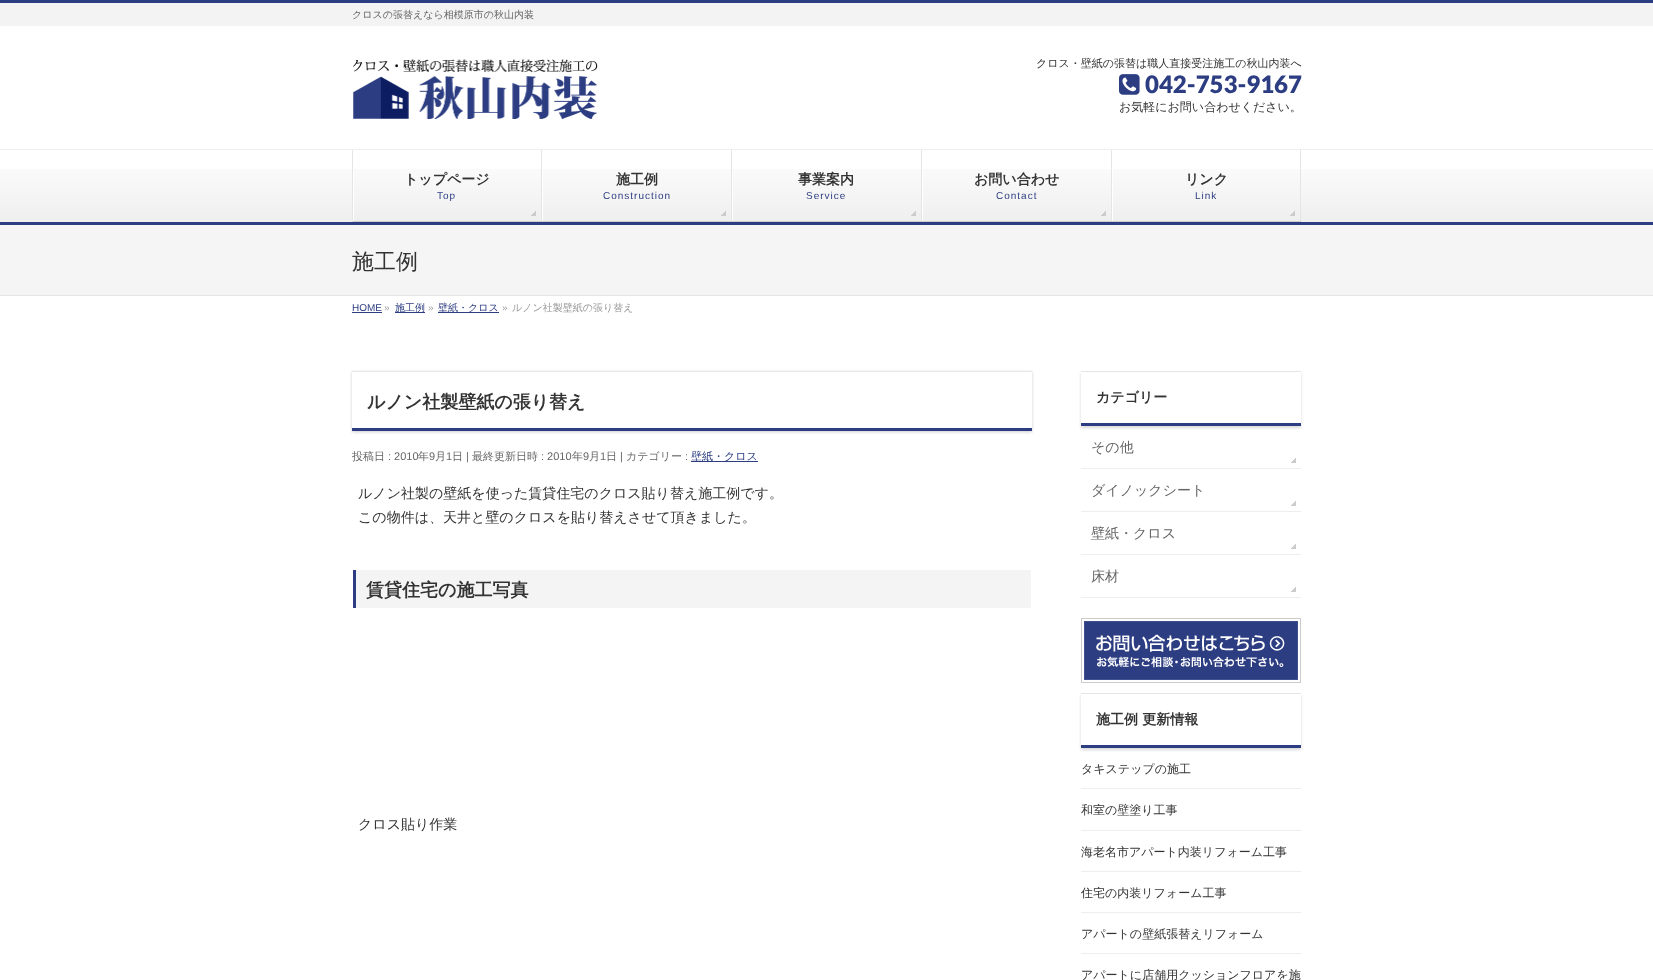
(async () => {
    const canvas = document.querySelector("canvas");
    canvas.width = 1653;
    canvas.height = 980;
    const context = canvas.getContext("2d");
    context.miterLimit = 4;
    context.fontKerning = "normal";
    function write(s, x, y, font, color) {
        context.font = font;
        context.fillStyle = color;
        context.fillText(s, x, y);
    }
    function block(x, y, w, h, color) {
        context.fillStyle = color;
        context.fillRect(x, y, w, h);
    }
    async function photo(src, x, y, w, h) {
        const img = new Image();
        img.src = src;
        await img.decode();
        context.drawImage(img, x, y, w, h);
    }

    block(0, 0, 1653, 980, "rgb(255, 255, 255)");
    block(0, 3, 1653, 23, "rgb(243, 243, 243)");
    block(0, 0, 1653, 3, "rgb(44, 61, 130)");
    write("クロスの張替えなら相模原市の秋山内装", 352, 18, "500 10px WenQuanYi Zen Hei", "rgb(102, 102, 102)");
    await photo("media/1.png", 353, 59, 245, 60);
    write("クロス・壁紙の張替は職人直接受注施工の秋山内装へ", 1036, 67, "500 11px WenQuanYi Zen Hei", "rgb(51, 51, 51)");
    await photo("media/2.png", 1119, 74, 21, 21);
    write("042-753-9167", 1145, 93, "900 24px Lato", "rgb(44, 61, 130)");
    write("お気軽にお問い合わせください。", 1119, 111, "500 12px WenQuanYi Zen Hei", "rgb(51, 51, 51)");
    await photo("media/3.png", 0, 169, 1653, 53);
    block(0, 149, 1653, 1, "rgb(238, 238, 238)");
    block(0, 222, 1653, 3, "rgb(44, 61, 130)");
    block(352, 150, 1, 72, "rgb(229, 229, 229)");
    block(353, 169, 1, 53, "rgb(255, 255, 255)");
    await photo("media/4.png", 531, 211, 5, 5);
    block(541, 150, 1, 72, "rgb(229, 229, 229)");
    block(353, 221, 189, 1, "rgb(204, 204, 204)");
    write("トップページ", 404, 184, "bold 14px WenQuanYi Zen Hei", "rgb(51, 51, 51)");
    context.letterSpacing = "1px";
    write("Top", 437, 199, "10px Liberation Sans", "rgb(44, 61, 130)");
    block(542, 169, 1, 53, "rgb(255, 255, 255)");
    await photo("media/4.png", 721, 211, 5, 5);
    block(731, 150, 1, 72, "rgb(229, 229, 229)");
    block(542, 221, 190, 1, "rgb(204, 204, 204)");
    context.letterSpacing = "0px";
    write("施工例", 616, 184, "bold 14px WenQuanYi Zen Hei", "rgb(51, 51, 51)");
    context.letterSpacing = "1px";
    write("Construction", 603, 199, "10px Liberation Sans", "rgb(44, 61, 130)");
    block(732, 169, 1, 53, "rgb(255, 255, 255)");
    await photo("media/4.png", 911, 211, 5, 5);
    block(921, 150, 1, 72, "rgb(229, 229, 229)");
    block(732, 221, 190, 1, "rgb(204, 204, 204)");
    context.letterSpacing = "0px";
    write("事業案内", 798, 184, "bold 14px WenQuanYi Zen Hei", "rgb(51, 51, 51)");
    context.letterSpacing = "1px";
    write("Service", 806, 199, "10px Liberation Sans", "rgb(44, 61, 130)");
    block(922, 169, 1, 53, "rgb(255, 255, 255)");
    await photo("media/4.png", 1101, 211, 5, 5);
    block(1111, 150, 1, 72, "rgb(229, 229, 229)");
    block(922, 221, 190, 1, "rgb(204, 204, 204)");
    context.letterSpacing = "0px";
    write("お問い合わせ", 974, 184, "bold 14px WenQuanYi Zen Hei", "rgb(51, 51, 51)");
    context.letterSpacing = "1px";
    write("Contact", 996, 199, "10px Liberation Sans", "rgb(44, 61, 130)");
    block(1112, 169, 1, 53, "rgb(255, 255, 255)");
    await photo("media/4.png", 1290, 211, 5, 5);
    block(1300, 150, 1, 72, "rgb(229, 229, 229)");
    block(1112, 221, 189, 1, "rgb(204, 204, 204)");
    context.letterSpacing = "0px";
    write("リンク", 1185, 184, "bold 14px WenQuanYi Zen Hei", "rgb(51, 51, 51)");
    context.letterSpacing = "1px";
    write("Link", 1195, 199, "10px Liberation Sans", "rgb(44, 61, 130)");
    block(0, 225, 1653, 70, "rgb(245, 245, 245)");
    block(0, 295, 1653, 1, "rgb(229, 229, 229)");
    context.letterSpacing = "0px";
    write("施工例", 352, 269, "500 22px WenQuanYi Zen Hei", "rgb(51, 51, 51)");
    write("HOME", 352, 311, "10px Liberation Sans", "rgb(44, 61, 130)");
    block(352, 312, 30, 1, "rgb(44, 61, 130)");
    write("»", 384, 311, "10px Liberation Sans", "rgb(153, 153, 153)");
    block(395, 312, 30, 1, "rgb(44, 61, 130)");
    write("施工例", 395, 311, "500 10px WenQuanYi Zen Hei", "rgb(44, 61, 130)");
    write("»", 428, 311, "10px Liberation Sans", "rgb(153, 153, 153)");
    block(438, 312, 61, 1, "rgb(44, 61, 130)");
    write("壁紙・クロス", 438, 311, "500 10px WenQuanYi Zen Hei", "rgb(44, 61, 130)");
    write("»", 502, 311, "10px Liberation Sans", "rgb(153, 153, 153)");
    write("ルノン社製壁紙の張り替え", 512, 311, "500 10px WenQuanYi Zen Hei", "rgb(153, 153, 153)");
    context.save();
    context.beginPath();
    context.moveTo(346, 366);
    context.lineTo(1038, 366);
    context.lineTo(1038, 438);
    context.lineTo(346, 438);
    context.closePath();
    context.moveTo(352, 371);
    context.lineTo(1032, 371);
    context.lineTo(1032, 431);
    context.lineTo(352, 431);
    context.closePath();
    context.clip("evenodd");
    context.fillStyle = "rgba(0, 0, 0, 0.2)";
    context.filter = "blur(1.5px)";
    context.beginPath();
    context.rect(352, 372, 680, 60);
    context.fill();
    context.filter = "none";
    context.restore();
    block(352, 371, 680, 1, "rgb(229, 229, 229)");
    block(352, 428, 680, 3, "rgb(44, 61, 130)");
    write("ルノン社製壁紙の張り替え", 367, 408, "bold 18px WenQuanYi Zen Hei", "rgb(51, 51, 51)");
    write("投稿日", 352, 460, "500 11px WenQuanYi Zen Hei", "rgb(102, 102, 102)");
    write(": 2010", 388, 460, "11px Liberation Sans", "rgb(102, 102, 102)");
    write("年", 418, 460, "500 11px WenQuanYi Zen Hei", "rgb(102, 102, 102)");
    write("9", 429, 460, "11px Liberation Sans", "rgb(102, 102, 102)");
    write("月", 435, 460, "500 11px WenQuanYi Zen Hei", "rgb(102, 102, 102)");
    write("1", 446, 460, "11px Liberation Sans", "rgb(102, 102, 102)");
    write("日", 452, 460, "500 11px WenQuanYi Zen Hei", "rgb(102, 102, 102)");
    write("|", 466, 460, "11px Liberation Sans", "rgb(102, 102, 102)");
    write("最終更新日時", 472, 460, "500 11px WenQuanYi Zen Hei", "rgb(102, 102, 102)");
    write(": 2010", 541, 460, "11px Liberation Sans", "rgb(102, 102, 102)");
    write("年", 572, 460, "500 11px WenQuanYi Zen Hei", "rgb(102, 102, 102)");
    write("9", 583, 460, "11px Liberation Sans", "rgb(102, 102, 102)");
    write("月", 589, 460, "500 11px WenQuanYi Zen Hei", "rgb(102, 102, 102)");
    write("1", 600, 460, "11px Liberation Sans", "rgb(102, 102, 102)");
    write("日", 606, 460, "500 11px WenQuanYi Zen Hei", "rgb(102, 102, 102)");
    write("|", 620, 460, "11px Liberation Sans", "rgb(102, 102, 102)");
    write("カテゴリー", 626, 460, "500 11px WenQuanYi Zen Hei", "rgb(102, 102, 102)");
    write(":", 685, 460, "11px Liberation Sans", "rgb(102, 102, 102)");
    block(691, 461, 67, 1, "rgb(44, 61, 130)");
    write("壁紙・クロス", 691, 460, "500 11px WenQuanYi Zen Hei", "rgb(44, 61, 130)");
    write("ルノン社製の壁紙を使った賃貸住宅のクロス貼り替え施工例です。", 358, 498, "500 14px WenQuanYi Zen Hei", "rgb(51, 51, 51)");
    write("この物件は、天井と壁のクロスを貼り替えさせて頂きました。", 358, 522, "500 14px WenQuanYi Zen Hei", "rgb(51, 51, 51)");
    block(356, 570, 675, 38, "rgb(244, 244, 244)");
    block(353, 570, 3, 38, "rgb(44, 61, 130)");
    write("賃貸住宅の施工写真", 366, 596, "bold 18px WenQuanYi Zen Hei", "rgb(51, 51, 51)");
    write("クロス貼り作業", 358, 829, "500 14px WenQuanYi Zen Hei", "rgb(51, 51, 51)");
    context.save();
    context.beginPath();
    context.moveTo(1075, 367);
    context.lineTo(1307, 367);
    context.lineTo(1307, 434);
    context.lineTo(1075, 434);
    context.closePath();
    context.moveTo(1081, 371);
    context.lineTo(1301, 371);
    context.lineTo(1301, 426);
    context.lineTo(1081, 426);
    context.closePath();
    context.clip("evenodd");
    context.fillStyle = "rgba(0, 0, 0, 0.15)";
    context.filter = "blur(1.5px)";
    context.beginPath();
    context.rect(1081, 373, 220, 55);
    context.fill();
    context.filter = "none";
    context.restore();
    block(1081, 371, 220, 1, "rgb(229, 229, 229)");
    block(1081, 423, 220, 3, "rgb(44, 61, 130)");
    write("カテゴリー", 1096, 402, "bold 14px WenQuanYi Zen Hei", "rgb(51, 51, 51)");
    block(1081, 468, 220, 1, "rgb(238, 238, 238)");
    await photo("media/5.png", 1291, 458, 5, 5);
    write("その他", 1091, 452, "500 14px WenQuanYi Zen Hei", "rgb(102, 102, 102)");
    block(1081, 511, 220, 1, "rgb(238, 238, 238)");
    await photo("media/5.png", 1291, 501, 5, 5);
    write("ダイノックシート", 1091, 495, "500 14px WenQuanYi Zen Hei", "rgb(102, 102, 102)");
    block(1081, 554, 220, 1, "rgb(238, 238, 238)");
    await photo("media/5.png", 1291, 544, 5, 5);
    write("壁紙・クロス", 1091, 538, "500 14px WenQuanYi Zen Hei", "rgb(102, 102, 102)");
    block(1081, 597, 220, 1, "rgb(238, 238, 238)");
    await photo("media/5.png", 1291, 587, 5, 5);
    write("床材", 1091, 581, "500 14px WenQuanYi Zen Hei", "rgb(102, 102, 102)");
    block(1084, 621, 214, 59, "rgb(44, 61, 130)");
    await photo("media/6.png", 1081, 618, 220, 65);
    context.save();
    context.beginPath();
    context.moveTo(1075, 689);
    context.lineTo(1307, 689);
    context.lineTo(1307, 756);
    context.lineTo(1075, 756);
    context.closePath();
    context.moveTo(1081, 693);
    context.lineTo(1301, 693);
    context.lineTo(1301, 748);
    context.lineTo(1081, 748);
    context.closePath();
    context.clip("evenodd");
    context.fillStyle = "rgba(0, 0, 0, 0.15)";
    context.filter = "blur(1.5px)";
    context.beginPath();
    context.rect(1081, 695, 220, 55);
    context.fill();
    context.filter = "none";
    context.restore();
    block(1081, 693, 220, 1, "rgb(229, 229, 229)");
    block(1081, 745, 220, 3, "rgb(44, 61, 130)");
    write("施工例 更新情報", 1096, 724, "bold 14px WenQuanYi Zen Hei", "rgb(51, 51, 51)");
    block(1081, 788, 220, 1, "rgb(238, 238, 238)");
    write("タキステップの施工", 1081, 773, "500 12px WenQuanYi Zen Hei", "rgb(51, 51, 51)");
    block(1081, 830, 220, 1, "rgb(238, 238, 238)");
    write("和室の壁塗り工事", 1081, 814, "500 12px WenQuanYi Zen Hei", "rgb(51, 51, 51)");
    block(1081, 871, 220, 1, "rgb(238, 238, 238)");
    write("海老名市アパート内装リフォーム工事", 1081, 856, "500 12px WenQuanYi Zen Hei", "rgb(51, 51, 51)");
    block(1081, 912, 220, 1, "rgb(238, 238, 238)");
    write("住宅の内装リフォーム工事", 1081, 897, "500 12px WenQuanYi Zen Hei", "rgb(51, 51, 51)");
    block(1081, 953, 220, 1, "rgb(238, 238, 238)");
    write("アパートの壁紙張替えリフォーム", 1081, 938, "500 12px WenQuanYi Zen Hei", "rgb(51, 51, 51)");
    write("アパートに店舗用クッションフロアを施", 1081, 979, "500 12px WenQuanYi Zen Hei", "rgb(51, 51, 51)");
})();
